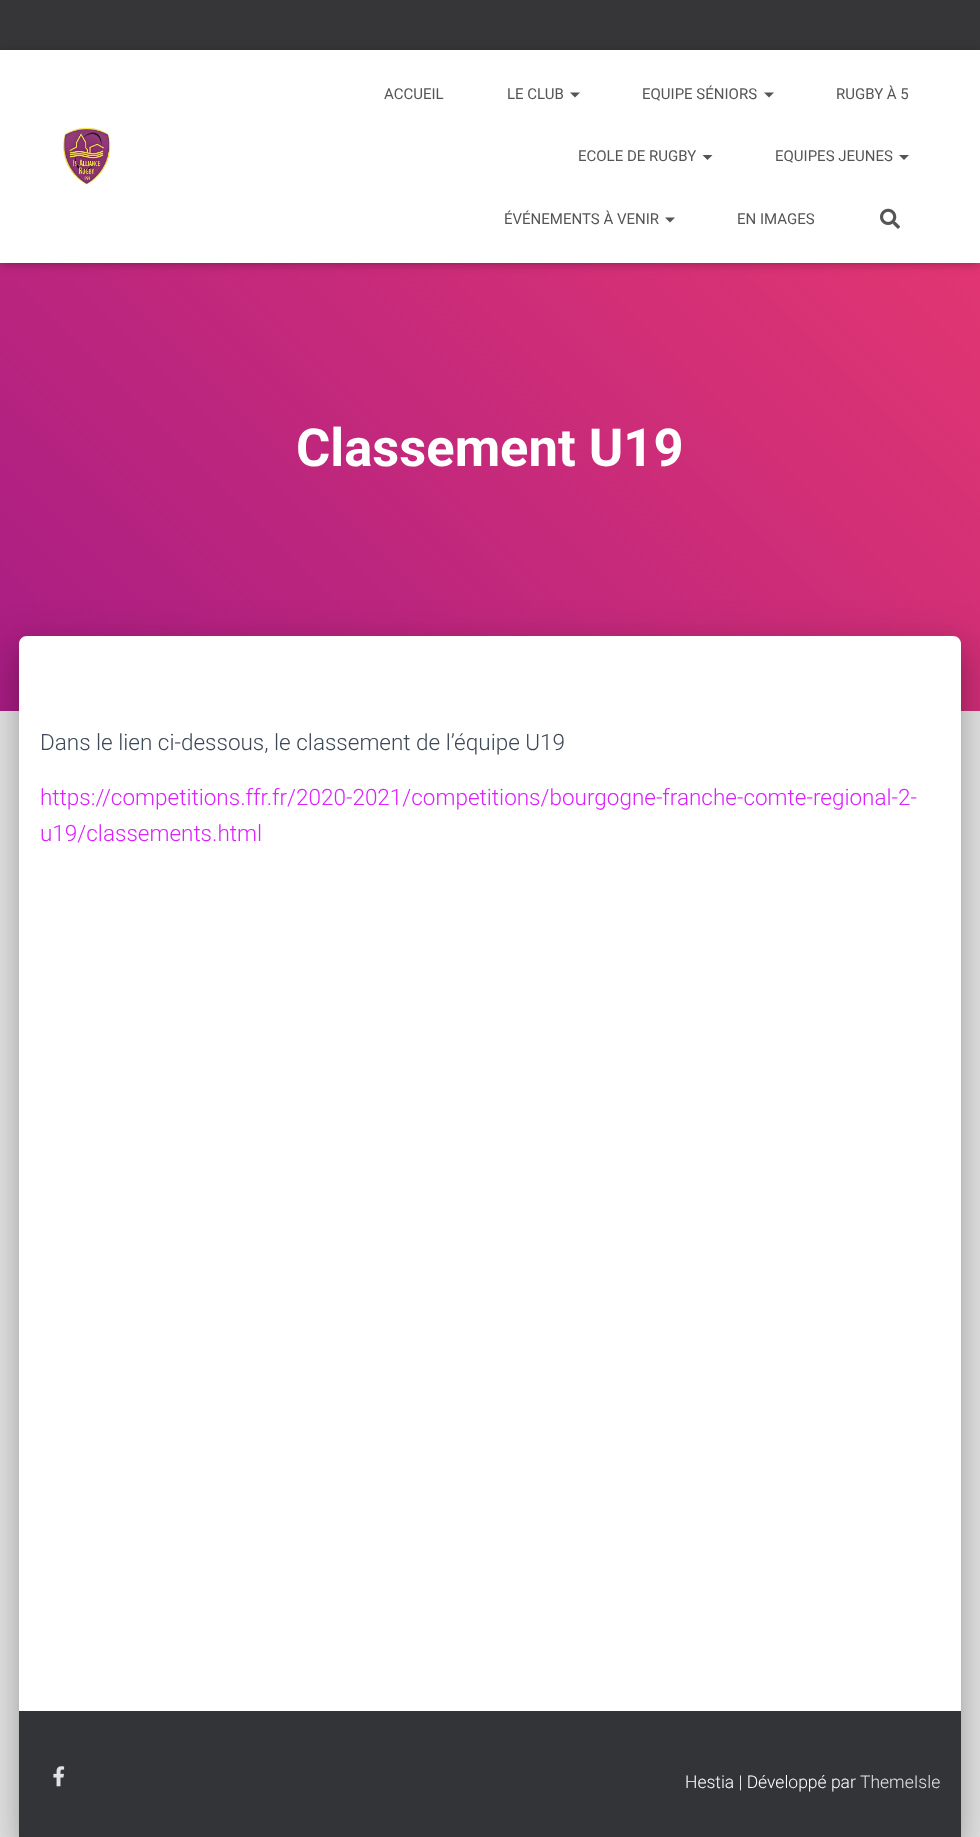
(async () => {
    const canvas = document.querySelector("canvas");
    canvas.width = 980;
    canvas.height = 1837;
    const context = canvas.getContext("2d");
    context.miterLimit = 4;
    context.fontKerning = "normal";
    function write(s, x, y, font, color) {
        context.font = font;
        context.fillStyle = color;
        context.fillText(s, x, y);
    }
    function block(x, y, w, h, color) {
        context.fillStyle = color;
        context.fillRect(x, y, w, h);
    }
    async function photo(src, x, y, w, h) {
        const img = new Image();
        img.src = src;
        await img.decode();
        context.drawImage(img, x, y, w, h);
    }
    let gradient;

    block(0, 0, 980, 1837, "rgb(229, 229, 229)");
    block(0, 0, 980, 50, "rgb(54, 53, 55)");
    gradient = context.createLinearGradient(80, 791, 900, -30);
    gradient.addColorStop(0, "rgb(168, 29, 132)");
    gradient.addColorStop(1, "rgb(234, 57, 111)");
    context.fillStyle = gradient;
    context.fillRect(0, 263, 980, 448);
    context.fillStyle = "rgba(0, 0, 0, 0.1)";
    context.filter = "blur(3px)";
    context.beginPath();
    context.rect(3, 58, 975, 207);
    context.fill();
    context.filter = "none";
    context.fillStyle = "rgba(0, 0, 0, 0.12)";
    context.filter = "blur(6px)";
    context.beginPath();
    context.rect(0, 51, 980, 213);
    context.fill();
    context.filter = "none";
    context.fillStyle = "rgba(0, 0, 0, 0.42)";
    context.filter = "blur(6px)";
    context.beginPath();
    context.rect(8, 59, 965, 197);
    context.fill();
    context.filter = "none";
    block(0, 50, 980, 213, "rgb(255, 255, 255)");
    await photo("media/1.png", 63, 127, 48, 58);
    write("ACCUEIL", 384, 99, "15px Roboto", "rgb(85, 85, 85)");
    write("LE CLUB", 507, 99, "15px Roboto", "rgb(85, 85, 85)");
    context.beginPath();
    context.moveTo(570, 92.5);
    context.lineTo(580, 92.5);
    context.lineTo(575, 97.5);
    context.closePath();
    context.fill();
    write("EQUIPE SÉNIORS", 642, 99, "15px Roboto", "rgb(85, 85, 85)");
    context.beginPath();
    context.moveTo(764, 92.5);
    context.lineTo(774, 92.5);
    context.lineTo(769, 97.5);
    context.closePath();
    context.fill();
    write("RUGBY À 5", 836, 99, "15px Roboto", "rgb(85, 85, 85)");
    write("ECOLE DE RUGBY", 578, 161, "15px Roboto", "rgb(85, 85, 85)");
    context.beginPath();
    context.moveTo(702.5, 155);
    context.lineTo(712.5, 155);
    context.lineTo(707.5, 160);
    context.closePath();
    context.fill();
    write("EQUIPES JEUNES", 775, 161, "15px Roboto", "rgb(85, 85, 85)");
    context.beginPath();
    context.moveTo(899, 155);
    context.lineTo(909, 155);
    context.lineTo(904, 160);
    context.closePath();
    context.fill();
    write("ÉVÉNEMENTS À VENIR", 504, 224, "15px Roboto", "rgb(85, 85, 85)");
    context.beginPath();
    context.moveTo(665, 217.5);
    context.lineTo(675, 217.5);
    context.lineTo(670, 222.5);
    context.closePath();
    context.fill();
    write("EN IMAGES", 737, 224, "15px Roboto", "rgb(85, 85, 85)");
    await photo("media/2.png", 880, 208, 20, 21);
    write("Classement U19", 296, 466, "bold 52.5px Roboto", "rgb(255, 255, 255)");
    context.fillStyle = "rgba(0, 0, 0, 0.2)";
    context.filter = "blur(6px)";
    context.beginPath();
    context.roundRect(25, 653, 930, 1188, 1);
    context.fill();
    context.filter = "none";
    context.fillStyle = "rgba(0, 0, 0, 0.12)";
    context.filter = "blur(19px)";
    context.beginPath();
    context.roundRect(13, 638, 955, 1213, 14);
    context.fill();
    context.filter = "none";
    context.fillStyle = "rgba(0, 0, 0, 0.14)";
    context.filter = "blur(15px)";
    context.beginPath();
    context.roundRect(16, 654, 948, 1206, 10);
    context.fill();
    context.filter = "none";
    context.fillStyle = "rgb(255, 255, 255)";
    context.beginPath();
    context.moveTo(27, 636);
    context.lineTo(953, 636);
    context.bezierCurveTo(957.5, 636, 961, 639.5, 961, 644);
    context.lineTo(961, 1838);
    context.lineTo(19, 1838);
    context.lineTo(19, 644);
    context.bezierCurveTo(19, 639.5, 22.5, 636, 27, 636);
    context.closePath();
    context.fill();
    write("Dans le lien ci-dessous, le classement de l’équipe U19", 40, 750, "300 22.5px Roboto", "rgb(60, 72, 88)");
    write("https://competitions.ffr.fr/2020-2021/competitions/bourgogne-franche-comte-regional-2-", 40, 805, "300 22.5px Roboto", "rgb(219, 32, 252)");
    write("u19/classements.html", 40, 841, "300 22.5px Roboto", "rgb(219, 32, 252)");
    block(19, 1711, 942, 126, "rgb(50, 52, 55)");
    await photo("media/3.png", 53, 1766, 12, 21);
    write("Hestia | Développé par", 685, 1788, "300 17.5px Roboto", "rgb(255, 255, 255)");
    write("ThemeIsle", 860, 1788, "300 17.5px Roboto", "rgb(226, 227, 227)");
})();
